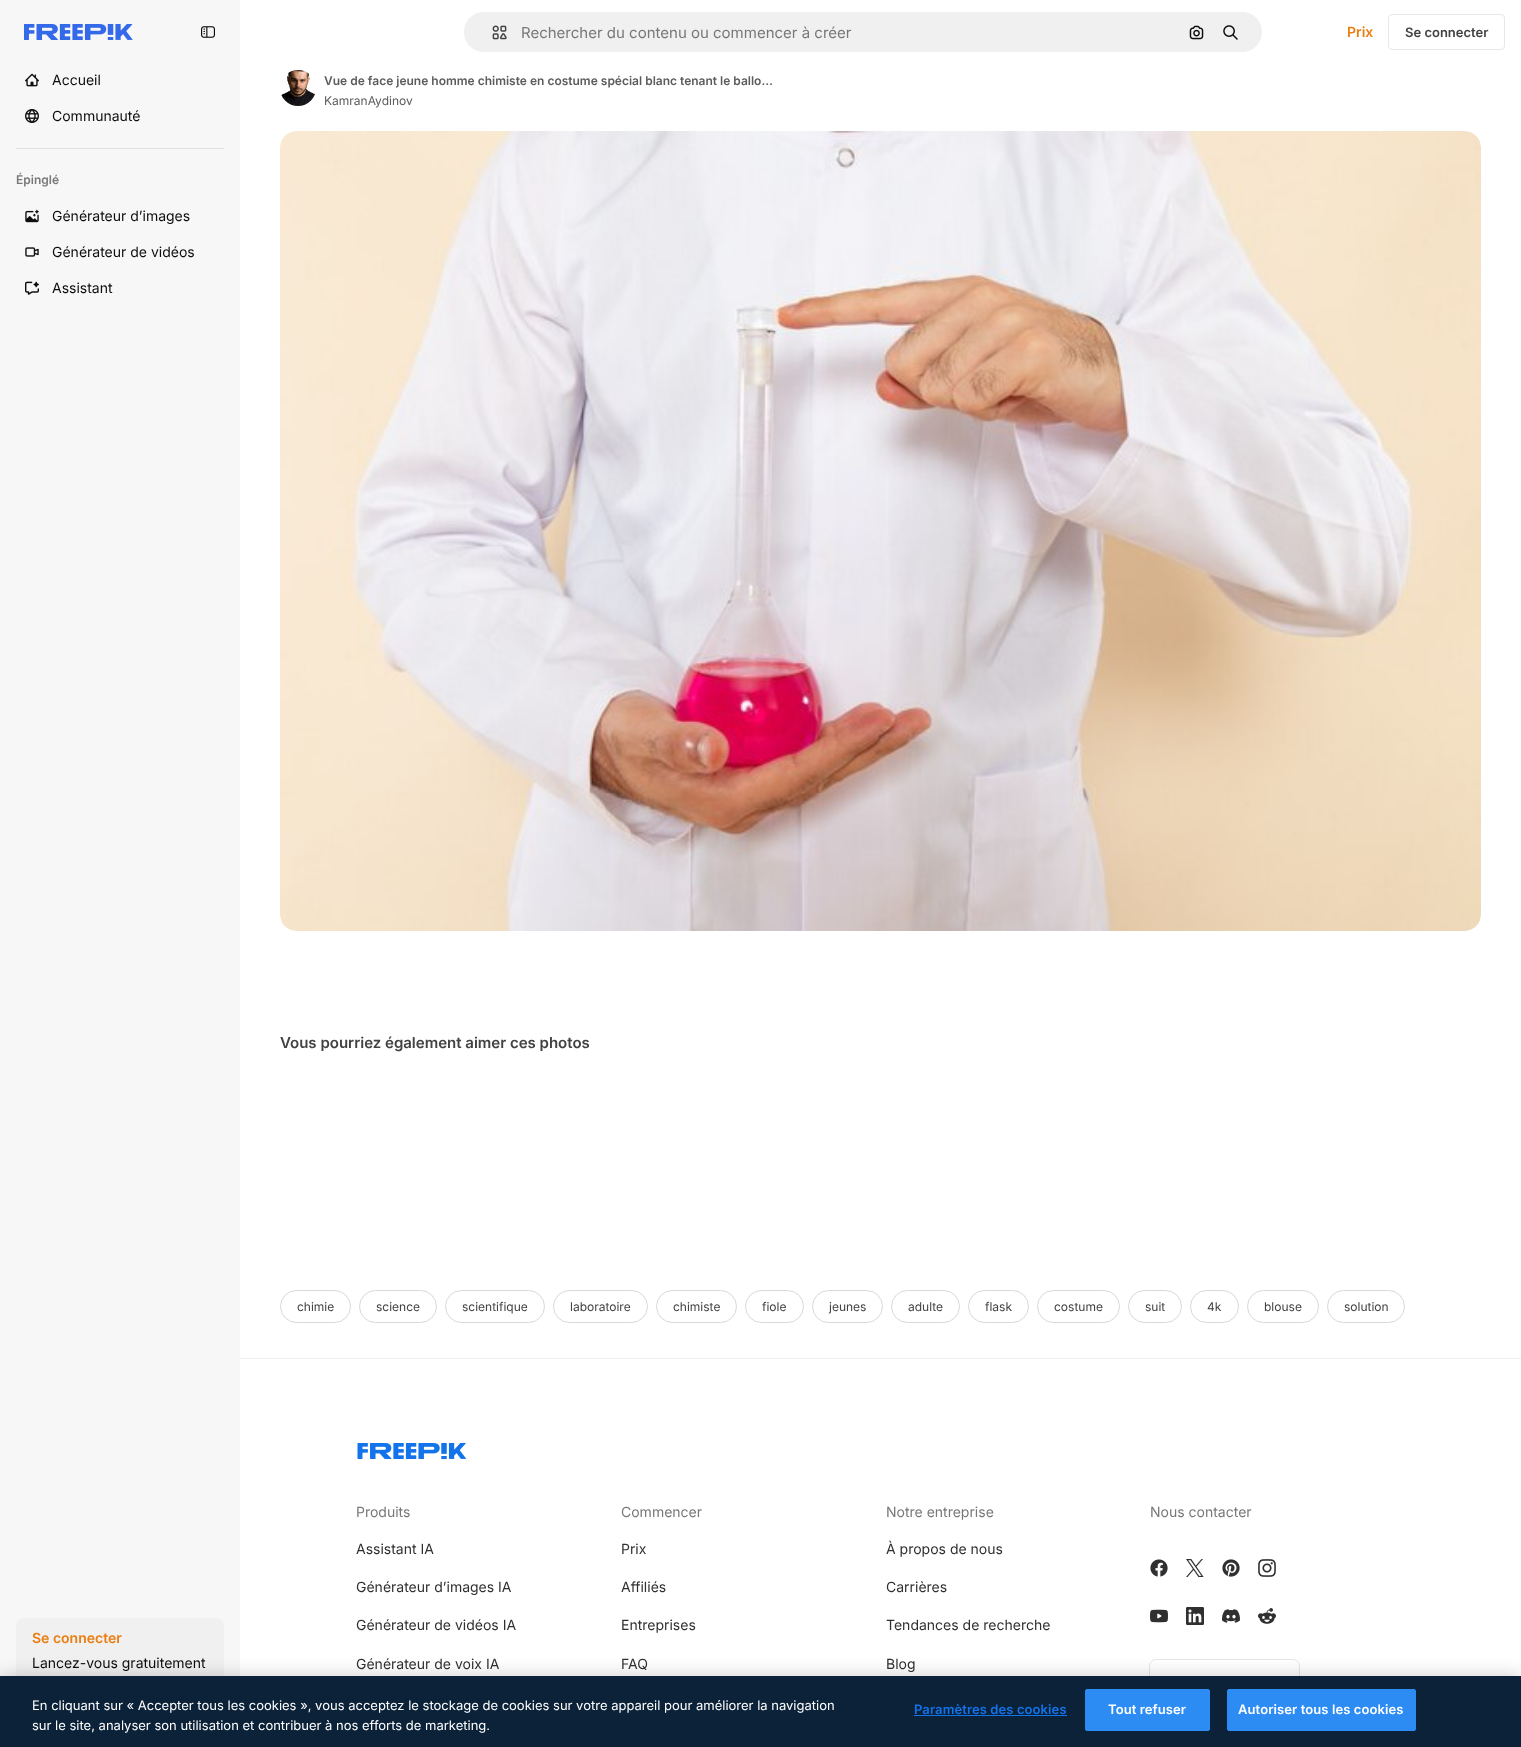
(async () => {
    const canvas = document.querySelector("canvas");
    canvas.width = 1521;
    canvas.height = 1747;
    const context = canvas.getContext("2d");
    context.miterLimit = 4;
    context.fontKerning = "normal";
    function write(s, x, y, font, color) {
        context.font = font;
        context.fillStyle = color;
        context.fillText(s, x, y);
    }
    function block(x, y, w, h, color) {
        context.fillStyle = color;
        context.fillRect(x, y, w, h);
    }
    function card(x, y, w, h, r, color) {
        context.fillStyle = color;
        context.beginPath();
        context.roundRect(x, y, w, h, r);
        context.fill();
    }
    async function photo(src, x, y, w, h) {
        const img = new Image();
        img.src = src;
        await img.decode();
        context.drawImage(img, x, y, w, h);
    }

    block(0, 0, 1521, 1747, "rgb(255, 255, 255)");
    block(0, 0, 240, 1676, "rgb(247, 247, 247)");
    await photo("media/1.png", 24, 24, 109, 16);
    await photo("media/2.png", 201, 26, 14, 12);
    await photo("media/3.png", 25, 73, 14, 14);
    write("Accueil", 52, 85, "14px Inter", "rgb(13, 13, 13)");
    await photo("media/4.png", 25, 109, 14, 14);
    write("Communauté", 52, 121, "14px Inter", "rgb(13, 13, 13)");
    block(16, 148, 208, 1, "rgb(224, 224, 224)");
    write("Épinglé", 16, 184, "600 12px Inter", "rgb(120, 120, 120)");
    await photo("media/5.png", 25, 209, 14, 14);
    write("Générateur d’images", 52, 221, "14px Inter", "rgb(13, 13, 13)");
    await photo("media/6.png", 25, 247, 14, 10);
    write("Générateur de vidéos", 52, 257, "14px Inter", "rgb(13, 13, 13)");
    await photo("media/7.png", 25, 281, 14, 14);
    write("Assistant", 52, 293, "14px Inter", "rgb(13, 13, 13)");
    card(16, 1618, 208, 65, 8, "rgb(240, 240, 240)");
    write("Se connecter", 32, 1643, "600 14px Inter", "rgb(234, 126, 17)");
    write("Lancez-vous gratuitement", 32, 1668, "14px Inter", "rgb(13, 13, 13)");
    context.fillStyle = "rgb(240, 240, 240)";
    context.beginPath();
    context.roundRect(463.5, 11.5, 799, 41, 20.5);
    context.fill();
    context.strokeStyle = "rgb(255, 255, 255)";
    context.stroke();
    await photo("media/8.png", 492, 25, 15, 15);
    write("Rechercher du contenu ou commencer à créer", 521, 38, "15px Inter", "rgb(120, 120, 120)");
    await photo("media/9.png", 1189, 25, 15, 15);
    await photo("media/10.png", 1223, 25, 15, 15);
    write("Prix", 1347, 37, "600 14px Inter", "rgb(234, 126, 17)");
    context.beginPath();
    context.roundRect(1388.5, 14.5, 116, 35, 3.5);
    context.strokeStyle = "rgb(231, 231, 231)";
    context.stroke();
    write("Se connecter", 1405, 37, "600 13px Inter", "rgb(66, 66, 66)");
    await photo("media/11.png", 281, 70, 34, 36);
    write("Vue de face jeune homme chimiste en costume spécial blanc tenant le ballo…", 324, 85, "600 12px Inter", "rgb(92, 92, 92)");
    write("KamranAydinov", 324, 105, "12px Inter", "rgb(92, 92, 92)");
    await photo("media/12.png", 280, 131, 1201, 800);
    write("Vous pourriez également aimer ces photos", 280, 1048, "600 15px Inter", "rgb(66, 66, 66)");
    context.beginPath();
    context.roundRect(280.5, 1290.5, 70, 32, 16);
    context.strokeStyle = "rgb(216, 216, 216)";
    context.stroke();
    write("chimie", 297, 1311, "12px Inter", "rgb(66, 66, 66)");
    context.beginPath();
    context.roundRect(359.5, 1290.5, 77, 32, 16);
    context.stroke();
    write("science", 376, 1311, "12px Inter", "rgb(66, 66, 66)");
    context.beginPath();
    context.roundRect(445.5, 1290.5, 99, 32, 16);
    context.stroke();
    write("scientifique", 462, 1311, "12px Inter", "rgb(66, 66, 66)");
    context.beginPath();
    context.roundRect(553.5, 1290.5, 94, 32, 16);
    context.stroke();
    write("laboratoire", 570, 1311, "12px Inter", "rgb(66, 66, 66)");
    context.beginPath();
    context.roundRect(656.5, 1290.5, 80, 32, 16);
    context.stroke();
    write("chimiste", 673, 1311, "12px Inter", "rgb(66, 66, 66)");
    context.beginPath();
    context.roundRect(745.5, 1290.5, 58, 32, 16);
    context.stroke();
    write("fiole", 762, 1311, "12px Inter", "rgb(66, 66, 66)");
    context.beginPath();
    context.roundRect(812.5, 1290.5, 70, 32, 16);
    context.stroke();
    write("jeunes", 829, 1311, "12px Inter", "rgb(66, 66, 66)");
    context.beginPath();
    context.roundRect(891.5, 1290.5, 68, 32, 16);
    context.stroke();
    write("adulte", 908, 1311, "12px Inter", "rgb(66, 66, 66)");
    context.beginPath();
    context.roundRect(968.5, 1290.5, 60, 32, 16);
    context.stroke();
    write("flask", 985, 1311, "12px Inter", "rgb(66, 66, 66)");
    context.beginPath();
    context.roundRect(1037.5, 1290.5, 82, 32, 16);
    context.stroke();
    write("costume", 1054, 1311, "12px Inter", "rgb(66, 66, 66)");
    context.beginPath();
    context.roundRect(1128.5, 1290.5, 53, 32, 16);
    context.stroke();
    write("suit", 1145, 1311, "12px Inter", "rgb(66, 66, 66)");
    context.beginPath();
    context.roundRect(1190.5, 1290.5, 48, 32, 16);
    context.stroke();
    write("4k", 1207, 1311, "12px Inter", "rgb(66, 66, 66)");
    context.beginPath();
    context.roundRect(1247.5, 1290.5, 71, 32, 16);
    context.stroke();
    write("blouse", 1264, 1311, "12px Inter", "rgb(66, 66, 66)");
    context.beginPath();
    context.roundRect(1327.5, 1290.5, 77, 32, 16);
    context.stroke();
    write("solution", 1344, 1311, "12px Inter", "rgb(66, 66, 66)");
    block(240, 1358, 1281, 1, "rgb(240, 240, 240)");
    await photo("media/13.png", 357, 1443, 109, 16);
    write("Produits", 356, 1517, "14px Inter", "rgb(120, 120, 120)");
    write("Assistant IA", 356, 1554, "14px Inter", "rgb(48, 48, 48)");
    write("Générateur d’images IA", 356, 1592, "14px Inter", "rgb(48, 48, 48)");
    write("Générateur de vidéos IA", 356, 1630, "14px Inter", "rgb(48, 48, 48)");
    write("Générateur de voix IA", 356, 1669, "14px Inter", "rgb(48, 48, 48)");
    write("Commencer", 621, 1517, "14px Inter", "rgb(120, 120, 120)");
    write("Prix", 621, 1554, "14px Inter", "rgb(48, 48, 48)");
    write("Affiliés", 621, 1592, "14px Inter", "rgb(48, 48, 48)");
    write("Entreprises", 621, 1630, "14px Inter", "rgb(48, 48, 48)");
    write("FAQ", 621, 1669, "14px Inter", "rgb(48, 48, 48)");
    write("Notre entreprise", 886, 1517, "14px Inter", "rgb(120, 120, 120)");
    write("À propos de nous", 886, 1554, "14px Inter", "rgb(48, 48, 48)");
    write("Carrières", 886, 1592, "14px Inter", "rgb(48, 48, 48)");
    write("Tendances de recherche", 886, 1630, "14px Inter", "rgb(48, 48, 48)");
    write("Blog", 886, 1669, "14px Inter", "rgb(48, 48, 48)");
    write("Nous contacter", 1150, 1517, "14px Inter", "rgb(120, 120, 120)");
    await photo("media/14.png", 1150, 1559, 18, 18);
    await photo("media/15.png", 1186, 1559, 18, 18);
    await photo("media/16.png", 1222, 1559, 18, 18);
    await photo("media/17.png", 1258, 1559, 18, 18);
    await photo("media/18.png", 1150, 1609, 18, 14);
    await photo("media/19.png", 1186, 1607, 18, 18);
    await photo("media/20.png", 1222, 1609, 18, 14);
    await photo("media/21.png", 1258, 1608, 18, 16);
    context.beginPath();
    context.roundRect(1149.5, 1659.5, 150, 45, 6.5);
    context.strokeStyle = "rgb(230, 230, 230)";
    context.stroke();
    context.fillStyle = "rgba(0, 0, 0, 0.2)";
    context.filter = "blur(9px)";
    context.beginPath();
    context.rect(0, 1676, 1521, 71);
    context.fill();
    context.filter = "none";
    block(0, 1676, 1521, 71, "rgb(11, 34, 57)");
    write("En cliquant sur « Accepter tous les cookies », vous acceptez le stockage de cookies sur votre appareil pour améliorer la navigation", 32, 1710, "13px Inter", "rgb(255, 255, 255)");
    write("sur le site, analyser son utilisation et contribuer à nos efforts de marketing.", 32, 1730, "13px Inter", "rgb(255, 255, 255)");
    context.letterSpacing = "0.1px";
    write("Paramètres des cookies", 914, 1714, "600 13px Inter", "rgb(18, 115, 235)");
    block(914, 1715, 153, 1, "rgb(18, 115, 235)");
    context.fillStyle = "rgb(44, 140, 244)";
    context.beginPath();
    context.roundRect(1085.5, 1689.5, 124, 41, 1.5);
    context.fill();
    context.strokeStyle = "rgb(44, 140, 244)";
    context.stroke();
    write("Tout refuser", 1108, 1714, "600 13px Inter", "rgb(255, 255, 255)");
    context.fillStyle = "rgb(44, 140, 244)";
    context.beginPath();
    context.roundRect(1227.5, 1689.5, 188, 41, 1.5);
    context.fill();
    context.stroke();
    write("Autoriser tous les cookies", 1238, 1714, "600 13px Inter", "rgb(255, 255, 255)");
})();
